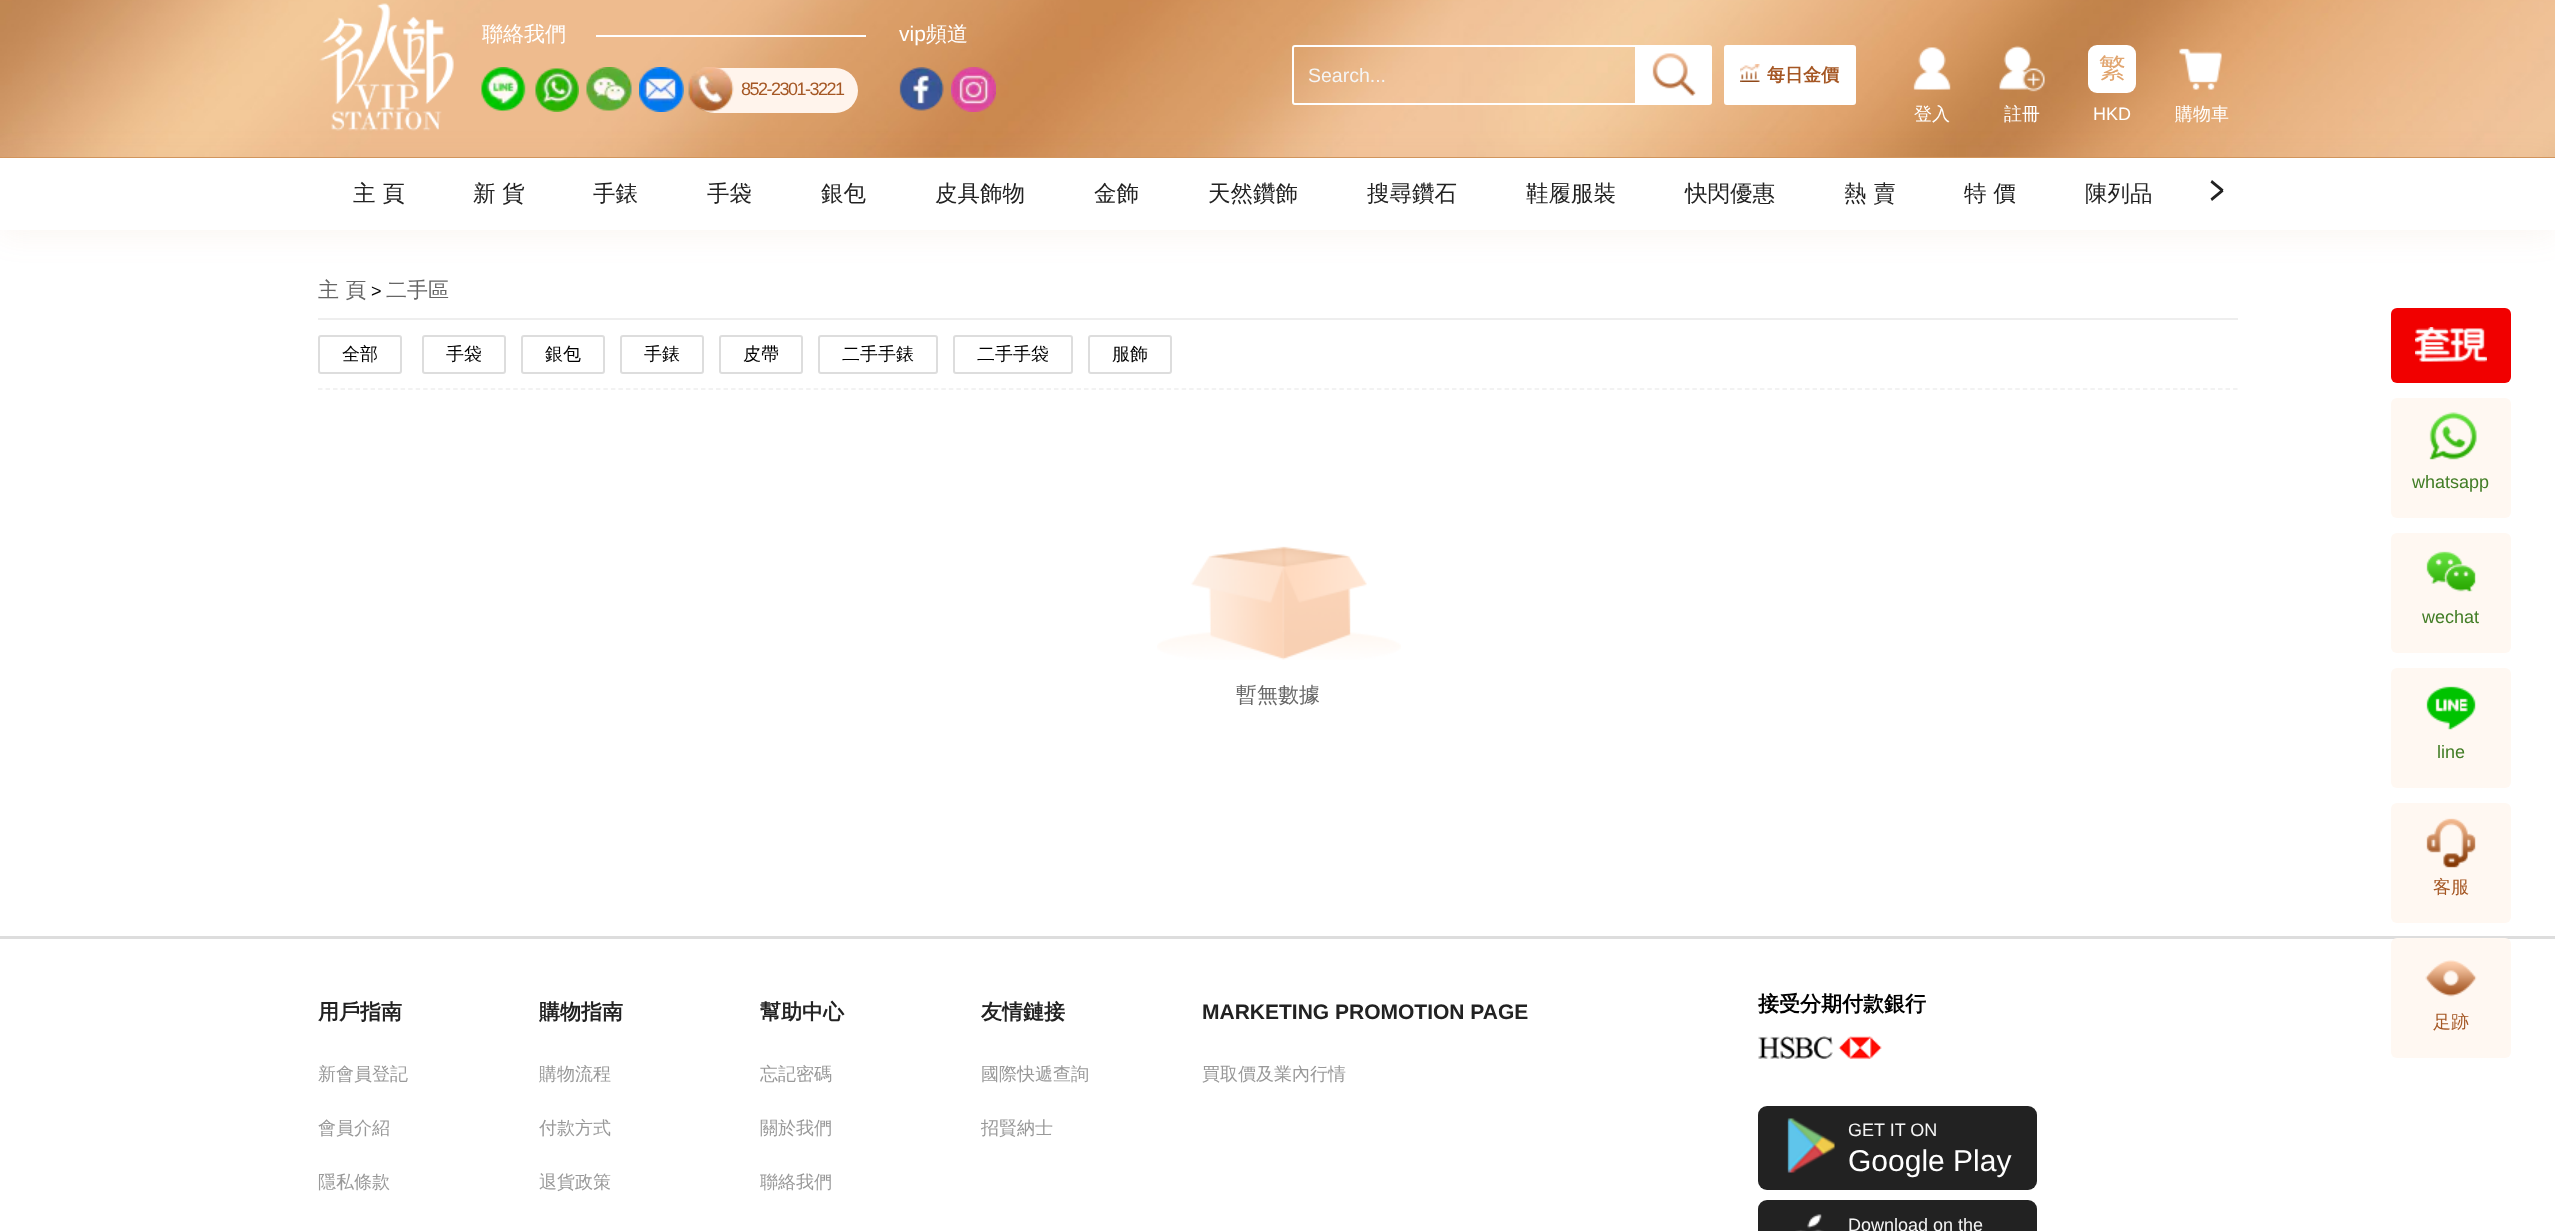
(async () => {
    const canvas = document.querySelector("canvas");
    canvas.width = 2555;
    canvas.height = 1231;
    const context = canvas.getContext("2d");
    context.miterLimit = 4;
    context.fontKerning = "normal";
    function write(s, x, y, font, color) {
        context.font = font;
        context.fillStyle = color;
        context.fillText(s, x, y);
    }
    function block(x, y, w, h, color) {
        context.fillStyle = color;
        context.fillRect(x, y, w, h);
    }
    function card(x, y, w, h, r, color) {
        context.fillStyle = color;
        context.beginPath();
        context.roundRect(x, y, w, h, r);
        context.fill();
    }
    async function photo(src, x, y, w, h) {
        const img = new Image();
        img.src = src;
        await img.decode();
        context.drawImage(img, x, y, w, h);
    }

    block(0, 0, 2555, 1231, "rgb(255, 255, 255)");
    block(0, 157, 2555, 1, "rgb(211, 150, 94)");
    await photo("media/1.png", 0, 0, 2555, 157);
    await photo("media/2.png", 319, 3, 135, 128);
    write("聯絡我們", 482, 41, "500 21px WenQuanYi Zen Hei", "rgb(255, 255, 255)");
    block(596, 35, 270, 2, "rgb(255, 255, 255)");
    await photo("media/3.png", 481, 67, 45, 45);
    await photo("media/4.png", 535, 68, 44, 44);
    await photo("media/5.png", 586, 67, 46, 44);
    await photo("media/6.png", 639, 67, 45, 45);
    card(692, 68, 166, 45, 22.5, "rgb(255, 244, 236)");
    await photo("media/7.png", 688, 67, 46, 45);
    context.letterSpacing = "-1.5px";
    write("852-2301-3221", 741, 95, "18px Liberation Sans", "rgb(165, 87, 36)");
    context.letterSpacing = "0px";
    write("vip", 899, 41, "21px Liberation Sans", "rgb(255, 255, 255)");
    write("頻道", 926, 41, "500 21px WenQuanYi Zen Hei", "rgb(255, 255, 255)");
    await photo("media/8.png", 899, 67, 45, 44);
    await photo("media/9.png", 951, 67, 45, 45);
    context.beginPath();
    context.roundRect(1293, 46, 343, 58, [2, 0, 0, 2]);
    context.strokeStyle = "rgb(255, 255, 255)";
    context.lineWidth = 2;
    context.stroke();
    write("Search...", 1308, 82, "19.5px Liberation Sans", "rgb(245, 245, 245)");
    context.fillStyle = "rgb(255, 255, 255)";
    context.beginPath();
    context.roundRect(1637, 45, 75, 60, [0, 3, 3, 0]);
    context.fill();
    await photo("media/10.png", 1652, 53, 44, 43);
    context.beginPath();
    context.roundRect(1725, 46, 130, 58, 2);
    context.fill();
    context.stroke();
    await photo("media/11.png", 1740, 64, 20, 18);
    write("每日金價", 1767, 81, "bold 18px WenQuanYi Zen Hei", "rgb(165, 87, 36)");
    await photo("media/12.png", 1913, 47, 38, 43);
    write("登入", 1914, 120, "500 18px WenQuanYi Zen Hei", "rgb(255, 255, 255)");
    await photo("media/13.png", 1999, 45, 46, 47);
    write("註冊", 2004, 120, "500 18px WenQuanYi Zen Hei", "rgb(255, 255, 255)");
    card(2088, 45, 48, 48, 9, "rgb(255, 255, 255)");
    write("繁", 2099, 77, "500 27px WenQuanYi Zen Hei", "rgb(225, 165, 111)");
    write("HKD", 2093, 120, "18px Liberation Sans", "rgb(255, 255, 255)");
    await photo("media/14.png", 2179, 48, 43, 42);
    write("購物車", 2175, 120, "500 18px WenQuanYi Zen Hei", "rgb(255, 255, 255)");
    context.fillStyle = "rgba(203, 135, 91, 0.09)";
    context.filter = "blur(16px)";
    context.beginPath();
    context.rect(0, 161, 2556, 72);
    context.fill();
    context.filter = "none";
    block(0, 158, 2555, 72, "rgb(255, 255, 255)");
    write("主 頁", 353, 201, "500 22.5px WenQuanYi Zen Hei", "rgb(34, 34, 34)");
    write("新 貨", 473, 201, "500 22.5px WenQuanYi Zen Hei", "rgb(34, 34, 34)");
    write("手錶", 593, 201, "500 22.5px WenQuanYi Zen Hei", "rgb(34, 34, 34)");
    write("手袋", 707, 201, "500 22.5px WenQuanYi Zen Hei", "rgb(34, 34, 34)");
    write("銀包", 821, 201, "500 22.5px WenQuanYi Zen Hei", "rgb(34, 34, 34)");
    write("皮具飾物", 935, 201, "500 22.5px WenQuanYi Zen Hei", "rgb(34, 34, 34)");
    write("金飾", 1094, 201, "500 22.5px WenQuanYi Zen Hei", "rgb(34, 34, 34)");
    write("天然鑽飾", 1208, 201, "500 22.5px WenQuanYi Zen Hei", "rgb(34, 34, 34)");
    write("搜尋鑽石", 1367, 201, "500 22.5px WenQuanYi Zen Hei", "rgb(34, 34, 34)");
    write("鞋履服裝", 1526, 201, "500 22.5px WenQuanYi Zen Hei", "rgb(34, 34, 34)");
    write("快閃優惠", 1685, 201, "500 22.5px WenQuanYi Zen Hei", "rgb(34, 34, 34)");
    write("熱 賣", 1844, 201, "500 22.5px WenQuanYi Zen Hei", "rgb(34, 34, 34)");
    write("特 價", 1964, 201, "500 22.5px WenQuanYi Zen Hei", "rgb(34, 34, 34)");
    write("陳列品", 2085, 201, "500 22.5px WenQuanYi Zen Hei", "rgb(34, 34, 34)");
    context.beginPath();
    context.moveTo(2212, 180);
    context.lineTo(2223.5, 189.5);
    context.lineTo(2222, 192);
    context.lineTo(2210.5, 182.5);
    context.closePath();
    context.fill();
    context.beginPath();
    context.moveTo(2210.5, 198.5);
    context.lineTo(2222, 189);
    context.lineTo(2223.5, 191.5);
    context.lineTo(2212, 201);
    context.closePath();
    context.fill();
    write("主 頁", 318, 297, "500 21px WenQuanYi Zen Hei", "rgb(102, 102, 102)");
    write(">", 371, 297, "18px Liberation Sans", "rgb(0, 0, 0)");
    write("二手區", 386, 297, "500 21px WenQuanYi Zen Hei", "rgb(102, 102, 102)");
    block(318, 318, 1920, 2, "rgb(238, 238, 238)");
    context.beginPath();
    context.moveTo(318, 389);
    context.lineTo(2238, 389);
    context.strokeStyle = "rgb(238, 238, 238)";
    context.lineWidth = 1.5;
    context.setLineDash([4.5, 3.01]);
    context.stroke();
    context.beginPath();
    context.roundRect(319, 336, 82, 37, 2);
    context.strokeStyle = "rgb(221, 221, 221)";
    context.lineWidth = 2;
    context.setLineDash([]);
    context.stroke();
    write("全部", 342, 360, "500 18px WenQuanYi Zen Hei", "rgb(0, 0, 0)");
    context.beginPath();
    context.roundRect(423, 336, 82, 37, 2);
    context.stroke();
    write("手袋", 446, 360, "500 18px WenQuanYi Zen Hei", "rgb(0, 0, 0)");
    context.beginPath();
    context.roundRect(522, 336, 82, 37, 2);
    context.stroke();
    write("銀包", 545, 360, "500 18px WenQuanYi Zen Hei", "rgb(0, 0, 0)");
    context.beginPath();
    context.roundRect(621, 336, 82, 37, 2);
    context.stroke();
    write("手錶", 644, 360, "500 18px WenQuanYi Zen Hei", "rgb(0, 0, 0)");
    context.beginPath();
    context.roundRect(720, 336, 82, 37, 2);
    context.stroke();
    write("皮帶", 743, 360, "500 18px WenQuanYi Zen Hei", "rgb(0, 0, 0)");
    context.beginPath();
    context.roundRect(819, 336, 118, 37, 2);
    context.stroke();
    write("二手手錶", 842, 360, "500 18px WenQuanYi Zen Hei", "rgb(0, 0, 0)");
    context.beginPath();
    context.roundRect(954, 336, 118, 37, 2);
    context.stroke();
    write("二手手袋", 977, 360, "500 18px WenQuanYi Zen Hei", "rgb(0, 0, 0)");
    context.beginPath();
    context.roundRect(1089, 336, 82, 37, 2);
    context.stroke();
    write("服飾", 1112, 360, "500 18px WenQuanYi Zen Hei", "rgb(0, 0, 0)");
    await photo("media/15.png", 1157, 546, 244, 114);
    write("暫無數據", 1236, 702, "500 21px WenQuanYi Zen Hei", "rgb(102, 102, 102)");
    card(2391, 308, 120, 75, 6, "rgb(241, 0, 0)");
    await photo("media/16.png", 2415, 327, 72, 35);
    card(2391, 398, 120, 120, 6, "rgb(255, 248, 242)");
    await photo("media/17.png", 2429, 412, 48, 48);
    write("whatsapp", 2412, 488, "18px Liberation Sans", "rgb(66, 125, 38)");
    card(2391, 533, 120, 120, 6, "rgb(255, 248, 242)");
    await photo("media/18.png", 2426, 551, 50, 41);
    write("wechat", 2422, 623, "18px Liberation Sans", "rgb(66, 125, 38)");
    card(2391, 668, 120, 120, 6, "rgb(255, 248, 242)");
    await photo("media/19.png", 2426, 686, 50, 44);
    write("line", 2437, 758, "18px Liberation Sans", "rgb(66, 125, 38)");
    card(2391, 803, 120, 120, 6, "rgb(255, 248, 242)");
    await photo("media/20.png", 2426, 818, 50, 50);
    write("客服", 2433, 893, "500 18px WenQuanYi Zen Hei", "rgb(165, 87, 36)");
    block(0, 936, 2555, 3, "rgb(221, 221, 221)");
    card(2391, 938, 120, 120, 6, "rgb(255, 248, 242)");
    await photo("media/21.png", 2425, 960, 52, 37);
    write("足跡", 2433, 1028, "500 18px WenQuanYi Zen Hei", "rgb(165, 87, 36)");
    write("用戶指南", 318, 1019, "bold 21px WenQuanYi Zen Hei", "rgb(34, 34, 34)");
    write("新會員登記", 318, 1080, "500 18px WenQuanYi Zen Hei", "rgb(153, 153, 153)");
    write("會員介紹", 318, 1134, "500 18px WenQuanYi Zen Hei", "rgb(153, 153, 153)");
    write("隱私條款", 318, 1188, "500 18px WenQuanYi Zen Hei", "rgb(153, 153, 153)");
    write("購物指南", 539, 1019, "bold 21px WenQuanYi Zen Hei", "rgb(34, 34, 34)");
    write("購物流程", 539, 1080, "500 18px WenQuanYi Zen Hei", "rgb(153, 153, 153)");
    write("付款方式", 539, 1134, "500 18px WenQuanYi Zen Hei", "rgb(153, 153, 153)");
    write("退貨政策", 539, 1188, "500 18px WenQuanYi Zen Hei", "rgb(153, 153, 153)");
    write("幫助中心", 760, 1019, "bold 21px WenQuanYi Zen Hei", "rgb(34, 34, 34)");
    write("忘記密碼", 760, 1080, "500 18px WenQuanYi Zen Hei", "rgb(153, 153, 153)");
    write("關於我們", 760, 1134, "500 18px WenQuanYi Zen Hei", "rgb(153, 153, 153)");
    write("聯絡我們", 760, 1188, "500 18px WenQuanYi Zen Hei", "rgb(153, 153, 153)");
    write("友情鏈接", 981, 1019, "bold 21px WenQuanYi Zen Hei", "rgb(34, 34, 34)");
    write("國際快遞查詢", 981, 1080, "500 18px WenQuanYi Zen Hei", "rgb(153, 153, 153)");
    write("招賢納士", 981, 1134, "500 18px WenQuanYi Zen Hei", "rgb(153, 153, 153)");
    write("MARKETING PROMOTION PAGE", 1202, 1019, "bold 21px Liberation Sans", "rgb(34, 34, 34)");
    write("買取價及業內行情", 1202, 1080, "500 18px WenQuanYi Zen Hei", "rgb(153, 153, 153)");
    write("接受分期付款銀行", 1758, 1011, "bold 21px WenQuanYi Zen Hei", "rgb(0, 0, 0)");
    await photo("media/22.png", 1758, 1036, 124, 23);
    card(1758, 1106, 279, 84, 9, "rgb(34, 34, 34)");
    await photo("media/23.png", 1787, 1118, 48, 55);
    write("GET IT ON", 1848, 1136, "18px Liberation Sans", "rgb(245, 245, 245)");
    write("Google Play", 1848, 1171, "30px Liberation Sans", "rgb(255, 255, 255)");
    card(1758, 1200, 279, 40, 9, "rgb(34, 34, 34)");
    await photo("media/24.png", 1795, 1214, 29, 17);
    write("Download on the", 1848, 1231, "18px Liberation Sans", "rgb(245, 245, 245)");
})();
